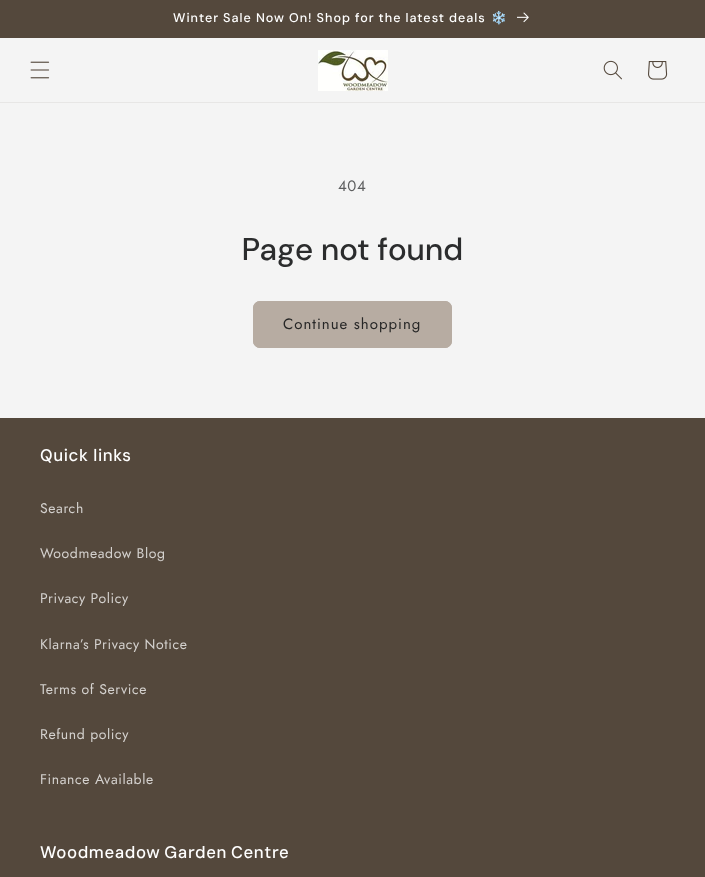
(async () => {
    const canvas = document.querySelector("canvas");
    canvas.width = 705;
    canvas.height = 877;
    const context = canvas.getContext("2d");
    context.miterLimit = 4;
    context.fontKerning = "normal";
    function write(s, x, y, font, color) {
        context.font = font;
        context.fillStyle = color;
        context.fillText(s, x, y);
    }
    function block(x, y, w, h, color) {
        context.fillStyle = color;
        context.fillRect(x, y, w, h);
    }
    function card(x, y, w, h, r, color) {
        context.fillStyle = color;
        context.beginPath();
        context.roundRect(x, y, w, h, r);
        context.fill();
    }
    async function photo(src, x, y, w, h) {
        const img = new Image();
        img.src = src;
        await img.decode();
        context.drawImage(img, x, y, w, h);
    }

    block(0, 0, 705, 877, "rgb(244, 244, 244)");
    block(0, 0, 705, 38, "rgb(84, 72, 60)");
    context.letterSpacing = "1px";
    context.wordSpacing = "-0.25px";
    write("Winter Sale Now On! Shop for the latest deals", 173, 22, "500 12.6px 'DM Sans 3'", "rgb(255, 255, 255)");
    context.wordSpacing = "0px";
    write("❄️", 491, 22, "12.6px Noto Color Emoji", "rgb(255, 255, 255)");
    await photo("media/1.png", 517, 12, 12, 11);
    block(0, 102, 705, 1, "rgb(231, 230, 229)");
    await photo("media/2.png", 30, 61, 20, 18);
    await photo("media/3.png", 318, 50, 70, 41);
    await photo("media/4.png", 603, 60, 19, 20);
    await photo("media/5.png", 648, 61, 20, 19);
    context.letterSpacing = "0.6px";
    write("404", 338, 191, "15px Jost", "rgb(93, 94, 95)");
    write("Page not found", 242, 260, "500 31.5px DM Sans", "rgb(43, 44, 45)");
    card(253, 301, 199, 47, 7, "rgb(183, 172, 162)");
    context.beginPath();
    context.roundRect(253.5, 301.5, 198, 46, 6.5);
    context.strokeStyle = "rgb(183, 172, 162)";
    context.stroke();
    context.letterSpacing = "1px";
    write("Continue shopping", 283, 329, "15px Jost", "rgb(38, 38, 38)");
    block(0, 418, 705, 459, "rgb(84, 72, 60)");
    context.letterSpacing = "0.6px";
    write("Quick links", 40, 461, "500 16.75px 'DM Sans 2'", "rgb(255, 255, 255)");
    write("Search", 40, 513, "14px Jost", "rgb(212, 209, 206)");
    write("Woodmeadow Blog", 40, 558, "14px Jost", "rgb(212, 209, 206)");
    write("Privacy Policy", 40, 603, "14px Jost", "rgb(212, 209, 206)");
    write("Klarna’s Privacy Notice", 40, 649, "14px Jost", "rgb(212, 209, 206)");
    write("Terms of Service", 40, 694, "14px Jost", "rgb(212, 209, 206)");
    write("Refund policy", 40, 739, "14px Jost", "rgb(212, 209, 206)");
    write("Finance Available", 40, 784, "14px Jost", "rgb(212, 209, 206)");
    context.wordSpacing = "-1px";
    write("Woodmeadow Garden Centre", 40, 858, "500 16.75px 'DM Sans 2'", "rgb(255, 255, 255)");
})();
